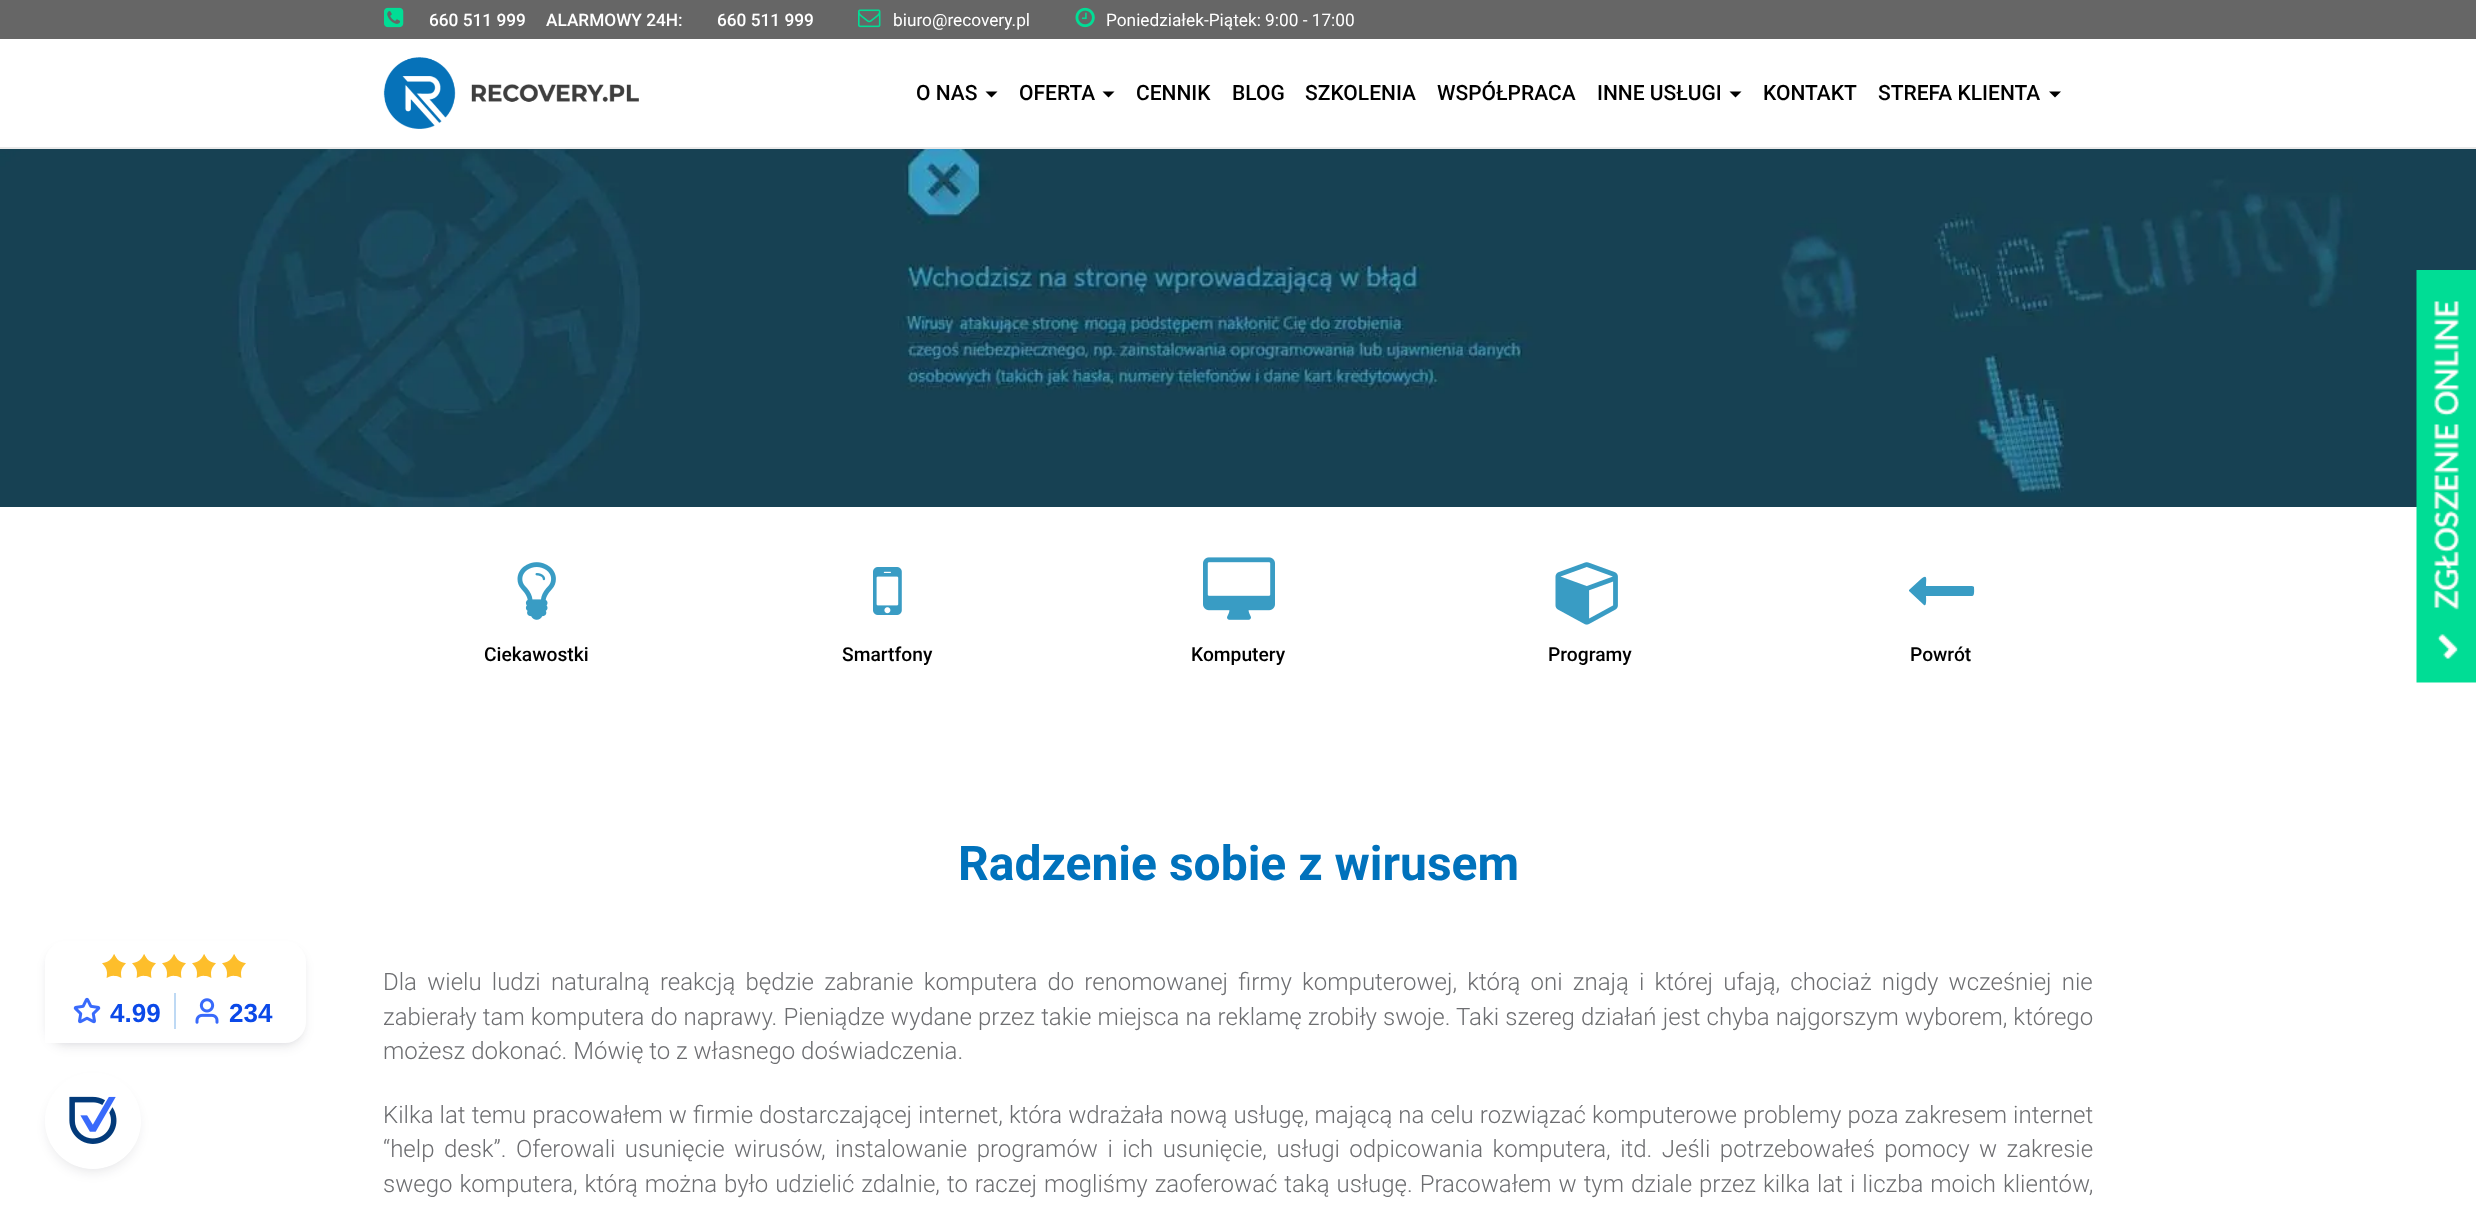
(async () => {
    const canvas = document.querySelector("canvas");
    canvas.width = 2476;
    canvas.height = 1213;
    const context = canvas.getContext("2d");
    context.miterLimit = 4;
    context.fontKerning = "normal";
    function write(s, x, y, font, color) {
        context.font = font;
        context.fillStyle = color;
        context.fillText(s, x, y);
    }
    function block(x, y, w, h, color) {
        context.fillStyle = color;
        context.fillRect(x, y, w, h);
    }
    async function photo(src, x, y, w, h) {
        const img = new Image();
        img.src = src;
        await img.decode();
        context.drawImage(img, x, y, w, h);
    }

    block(0, 0, 2476, 1213, "rgb(255, 255, 255)");
    block(0, 0, 2476, 39, "rgb(102, 102, 102)");
    await photo("media/1.png", 384, 7, 20, 21);
    write("660 511 999", 429, 26, "500 17.25px Roboto", "rgb(255, 255, 255)");
    write("ALARMOWY 24H:", 546, 26, "500 17.25px Roboto", "rgb(255, 255, 255)");
    write("660 511 999", 717, 26, "500 17.25px Roboto", "rgb(255, 255, 255)");
    await photo("media/2.png", 858, 9, 23, 19);
    write("biuro@recovery.pl", 893, 26, "17.25px Roboto", "rgb(255, 255, 255)");
    await photo("media/3.png", 1075, 7, 20, 21);
    write("Poniedziałek-Piątek: 9:00 - 17:00", 1106, 26, "17.25px Roboto", "rgb(255, 255, 255)");
    block(0, 147, 2476, 2, "rgb(234, 234, 234)");
    await photo("media/4.png", 383, 57, 256, 72);
    write("O NAS", 916, 100, "500 21px Roboto", "rgb(0, 0, 0)");
    context.beginPath();
    context.moveTo(985.5, 91.5);
    context.lineTo(997.5, 91.5);
    context.lineTo(991.5, 97.5);
    context.closePath();
    context.fill();
    write("OFERTA", 1019, 100, "500 21px Roboto", "rgb(0, 0, 0)");
    context.beginPath();
    context.moveTo(1102.5, 91.5);
    context.lineTo(1114.5, 91.5);
    context.lineTo(1108.5, 97.5);
    context.closePath();
    context.fill();
    write("CENNIK", 1136, 100, "500 21px Roboto", "rgb(0, 0, 0)");
    write("BLOG", 1232, 100, "500 21px Roboto", "rgb(0, 0, 0)");
    write("SZKOLENIA", 1305, 100, "500 21px Roboto", "rgb(0, 0, 0)");
    write("WSPÓŁPRACA", 1437, 100, "500 21px Roboto", "rgb(0, 0, 0)");
    write("INNE USŁUGI", 1597, 100, "500 21px Roboto", "rgb(0, 0, 0)");
    context.beginPath();
    context.moveTo(1729.5, 91.5);
    context.lineTo(1741.5, 91.5);
    context.lineTo(1735.5, 97.5);
    context.closePath();
    context.fill();
    write("KONTAKT", 1763, 100, "500 21px Roboto", "rgb(0, 0, 0)");
    write("STREFA KLIENTA", 1878, 100, "500 21px Roboto", "rgb(0, 0, 0)");
    context.beginPath();
    context.moveTo(2049, 91.5);
    context.lineTo(2061, 91.5);
    context.lineTo(2055, 97.5);
    context.closePath();
    context.fill();
    await photo("media/5.png", 0, 149, 2476, 358);
    await photo("media/6.png", 2416, 270, 60, 413);
    context.fillStyle = "rgba(16, 24, 40, 0.06)";
    context.filter = "blur(3px)";
    context.beginPath();
    context.roundRect(48, 947, 255, 96, 18);
    context.fill();
    context.filter = "none";
    context.fillStyle = "rgba(16, 24, 40, 0.1)";
    context.filter = "blur(6px)";
    context.beginPath();
    context.roundRect(48, 950, 255, 96, 18);
    context.fill();
    context.filter = "none";
    context.fillStyle = "rgb(255, 255, 255)";
    context.beginPath();
    context.roundRect(45, 941, 261, 102, [21, 21, 21, 0]);
    context.fill();
    await photo("media/7.png", 102, 954, 15, 24);
    await photo("media/8.png", 114, 954, 12, 24);
    await photo("media/7.png", 132, 954, 15, 24);
    await photo("media/8.png", 144, 954, 12, 24);
    await photo("media/7.png", 162, 954, 15, 24);
    await photo("media/8.png", 174, 954, 12, 24);
    await photo("media/7.png", 192, 954, 15, 24);
    await photo("media/8.png", 204, 954, 12, 24);
    await photo("media/7.png", 222, 954, 15, 24);
    await photo("media/8.png", 234, 954, 12, 24);
    await photo("media/9.png", 73, 997, 28, 27);
    write("4.99", 110, 1022, "bold 26px Liberation Sans", "rgb(11, 73, 232)");
    block(174, 993, 2, 36, "rgb(190, 217, 244)");
    await photo("media/10.png", 195, 998, 24, 26);
    write("234", 229, 1022, "bold 26px Liberation Sans", "rgb(11, 73, 232)");
    context.save();
    context.beginPath();
    context.moveTo(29, 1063);
    context.lineTo(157, 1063);
    context.lineTo(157, 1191);
    context.lineTo(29, 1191);
    context.closePath();
    context.moveTo(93, 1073);
    context.bezierCurveTo(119.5, 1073, 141, 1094.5, 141, 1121);
    context.bezierCurveTo(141, 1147.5, 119.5, 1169, 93, 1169);
    context.bezierCurveTo(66.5, 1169, 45, 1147.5, 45, 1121);
    context.bezierCurveTo(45, 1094.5, 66.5, 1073, 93, 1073);
    context.closePath();
    context.clip("evenodd");
    context.fillStyle = "rgba(16, 24, 40, 0.1)";
    context.filter = "blur(6px)";
    context.beginPath();
    context.roundRect(48, 1082, 90, 90, 45);
    context.fill();
    context.filter = "none";
    context.restore();
    await photo("media/11.png", 55, 1096, 76, 73);
    await photo("media/12.png", 517, 562, 39, 58);
    write("Ciekawostki", 484, 661, "500 19.25px Roboto", "rgb(0, 0, 0)");
    await photo("media/13.png", 873, 567, 29, 48);
    write("Smartfony", 842, 661, "500 19.25px Roboto", "rgb(0, 0, 0)");
    await photo("media/14.png", 1203, 557, 72, 63);
    write("Komputery", 1191, 661, "500 19.25px Roboto", "rgb(0, 0, 0)");
    await photo("media/15.png", 1555, 562, 63, 63);
    write("Programy", 1548, 661, "500 19.25px Roboto", "rgb(0, 0, 0)");
    context.fillStyle = "rgb(57, 156, 196)";
    context.beginPath();
    context.moveTo(1974, 587);
    context.bezierCurveTo(1974, 589, 1975, 596, 1972, 596);
    context.lineTo(1926, 596);
    context.bezierCurveTo(1926, 597, 1927, 607, 1924, 605);
    context.lineTo(1909, 591);
    context.lineTo(1909, 590);
    context.lineTo(1921, 579);
    context.bezierCurveTo(1928, 573, 1926, 580, 1926, 586);
    context.lineTo(1972, 586);
    context.bezierCurveTo(1973, 586, 1974, 587, 1974, 587);
    context.closePath();
    context.fill();
    write("Powrót", 1910, 661, "500 19.25px Roboto", "rgb(0, 0, 0)");
    write("Radzenie sobie z wirusem", 958, 880, "bold 48px Roboto", "rgb(0, 114, 188)");
    context.wordSpacing = "4.3px";
    write("Dla wielu ludzi naturalną reakcją będzie zabranie komputera do renomowanej firmy komputerowej, którą oni znają i której ufają, chociaż nigdy wcześniej nie", 383, 990, "300 24px Roboto", "rgb(109, 110, 113)");
    context.wordSpacing = "0.25px";
    write("zabierały tam komputera do naprawy. Pieniądze wydane przez takie miejsca na reklamę zrobiły swoje. Taki szereg działań jest chyba najgorszym wyborem, którego", 383, 1025, "300 24px Roboto", "rgb(109, 110, 113)");
    context.wordSpacing = "0px";
    write("możesz dokonać. Mówię to z własnego doświadczenia.", 383, 1059, "300 24px Roboto", "rgb(109, 110, 113)");
    context.wordSpacing = "0.2px";
    write("Kilka lat temu pracowałem w firmie dostarczającej internet, która wdrażała nową usługę, mającą na celu rozwiązać komputerowe problemy poza zakresem internet", 383, 1123, "300 24px Roboto", "rgb(109, 110, 113)");
    context.wordSpacing = "3.6px";
    write("“help desk”. Oferowali usunięcie wirusów, instalowanie programów i ich usunięcie, usługi odpicowania komputera, itd. Jeśli potrzebowałeś pomocy w zakresie", 383, 1157, "300 24px Roboto", "rgb(109, 110, 113)");
    context.wordSpacing = "1.1px";
    write("swego komputera, którą można było udzielić zdalnie, to raczej mogliśmy zaoferować taką usługę. Pracowałem w tym dziale przez kilka lat i liczba moich klientów,", 383, 1192, "300 24px Roboto", "rgb(109, 110, 113)");
})();
